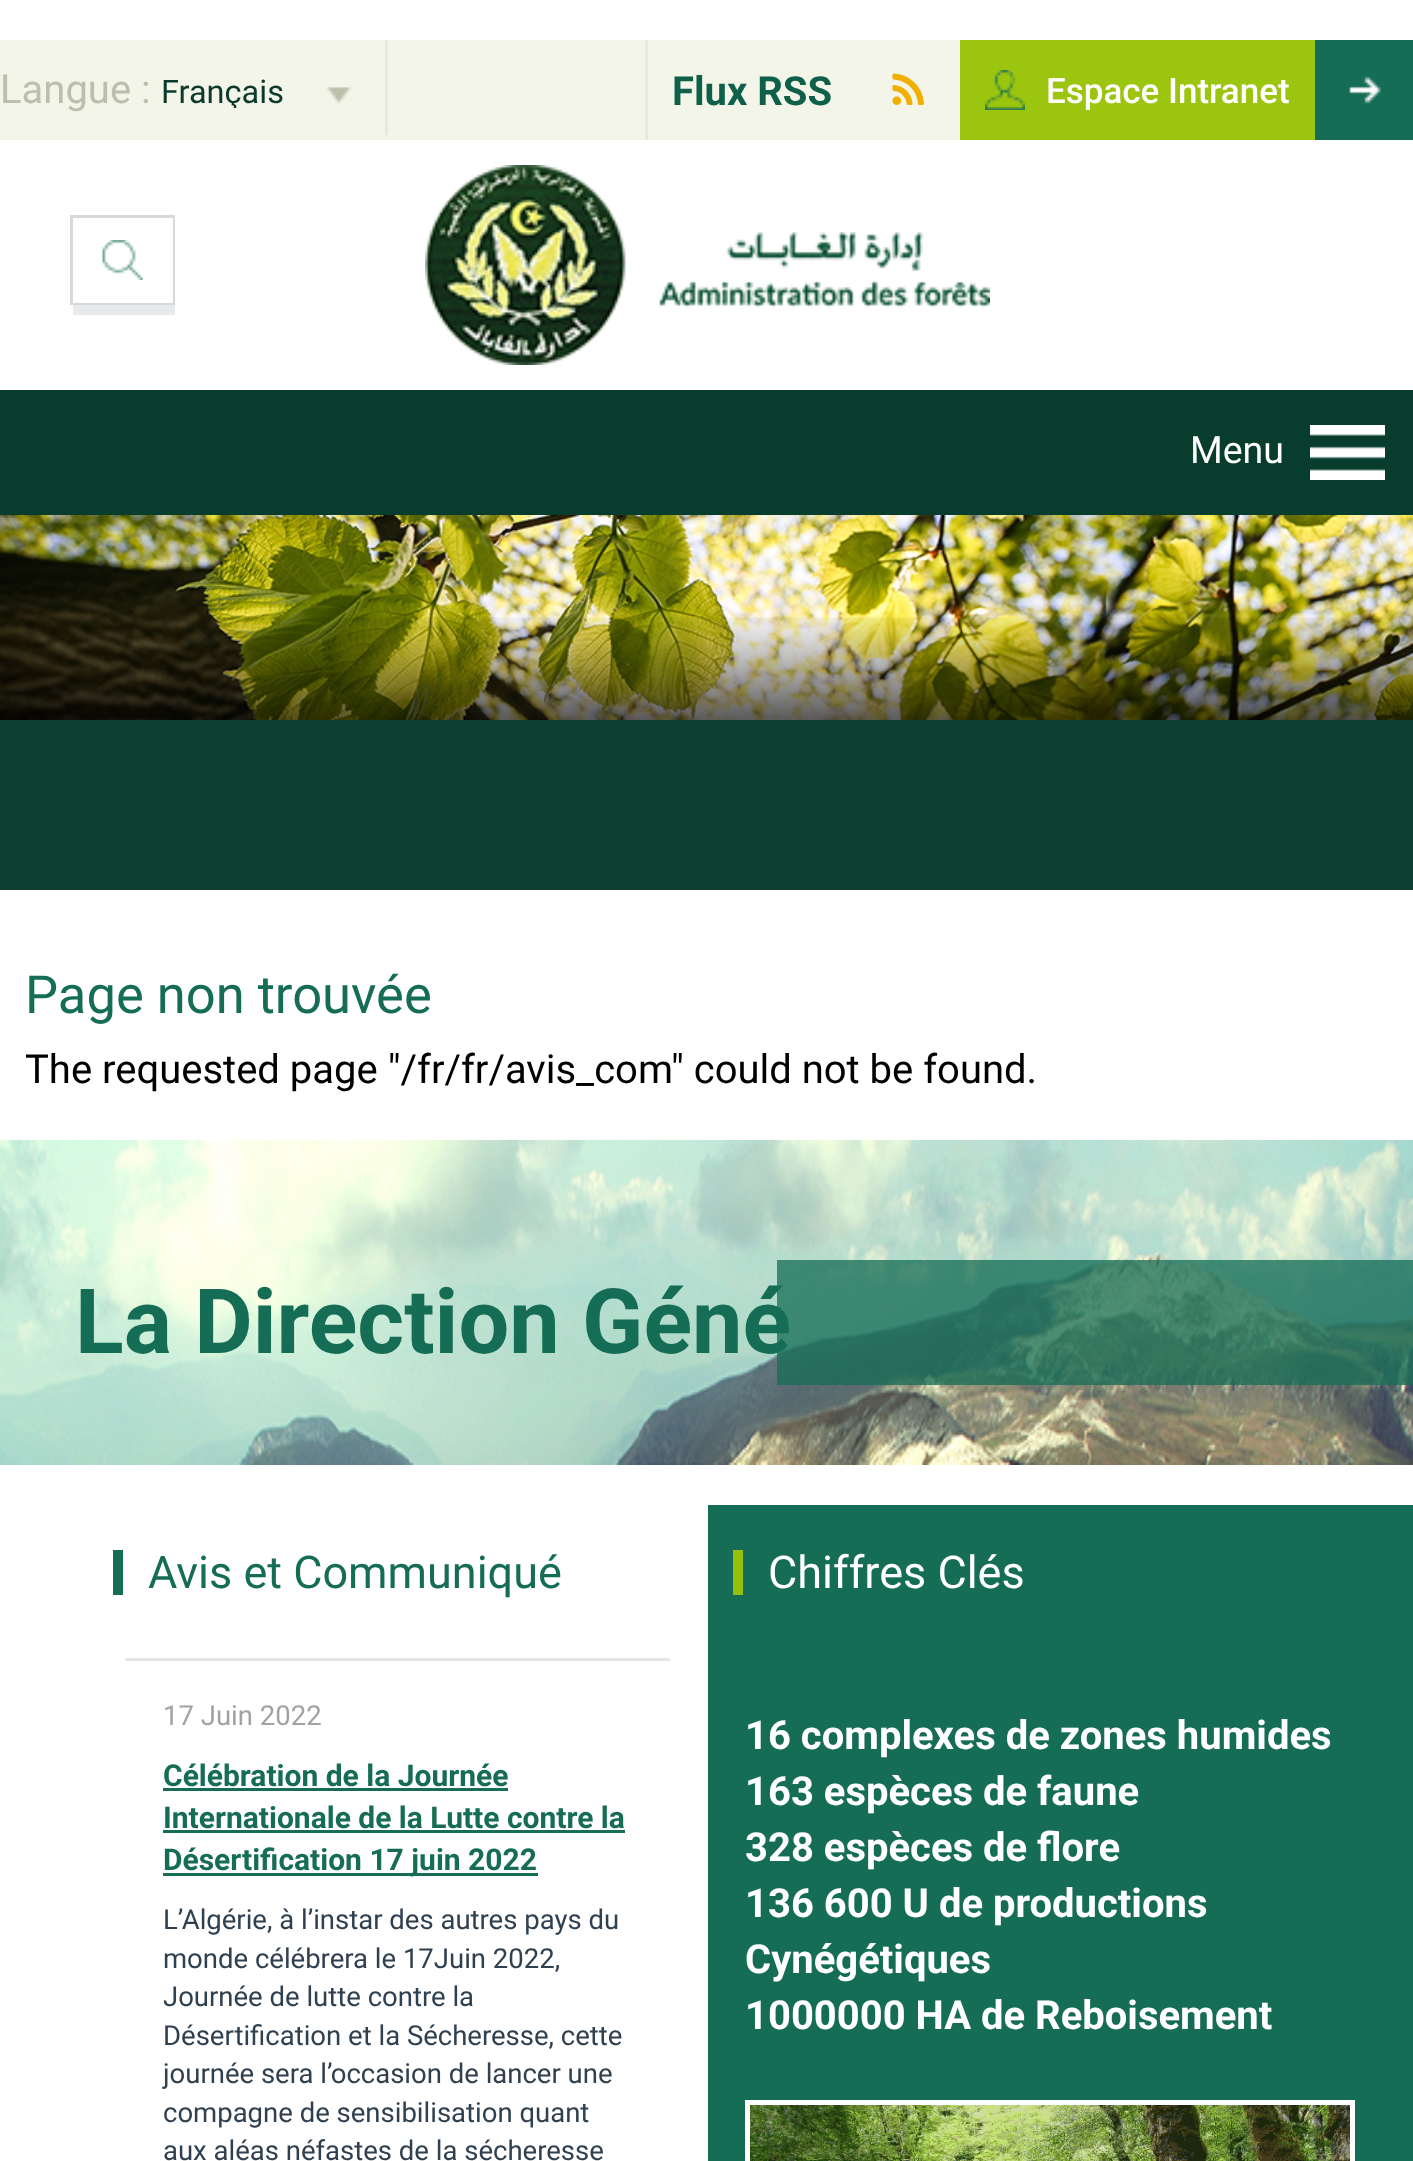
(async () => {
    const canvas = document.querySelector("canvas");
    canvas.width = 1413;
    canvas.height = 2161;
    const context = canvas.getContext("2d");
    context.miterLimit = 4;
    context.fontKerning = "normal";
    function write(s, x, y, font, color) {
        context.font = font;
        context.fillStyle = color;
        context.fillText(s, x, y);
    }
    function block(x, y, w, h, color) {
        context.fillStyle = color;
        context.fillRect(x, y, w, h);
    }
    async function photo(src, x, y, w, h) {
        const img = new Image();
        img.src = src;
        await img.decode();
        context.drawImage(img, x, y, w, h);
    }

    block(0, 0, 1413, 2161, "rgb(255, 255, 255)");
    block(0, 40, 960, 100, "rgb(242, 245, 232)");
    block(385, 40, 3, 95, "rgb(230, 233, 220)");
    write("Langue :", 0, 103, "40px Roboto", "rgb(187, 191, 172)");
    await photo("media/1.png", 327, 87, 24, 17);
    context.save();
    context.beginPath();
    context.rect(160, 75, 200, 33);
    context.clip();
    write("Français", 161, 103, "32.5px Roboto", "rgb(12, 57, 44)");
    context.restore();
    block(645, 40, 3, 100, "rgb(230, 233, 220)");
    write("Flux RSS", 672, 105, "bold 40px Roboto", "rgb(15, 96, 74)");
    await photo("media/2.png", 892, 73, 32, 32);
    block(960, 40, 355, 100, "rgb(156, 197, 16)");
    await photo("media/3.png", 1315, 40, 98, 100);
    await photo("media/4.png", 985, 70, 40, 40);
    write("Espace Intranet", 1046, 103, "500 35px Roboto", "rgb(255, 255, 255)");
    context.strokeStyle = "rgb(218, 217, 217)";
    context.lineWidth = 3;
    context.strokeRect(71.5, 216.5, 102, 87);
    block(73, 218, 100, 85, "rgb(255, 255, 255)");
    await photo("media/5.png", 102, 240, 41, 40);
    block(73, 305, 102, 10, "rgb(231, 234, 236)");
    await photo("media/6.png", 425, 165, 565, 200);
    block(0, 390, 1413, 125, "rgb(8, 61, 46)");
    await photo("media/7.png", 1310, 425, 75, 55);
    write("Menu", 1190, 463, "37.5px Roboto", "rgb(255, 255, 255)");
    block(0, 720, 1413, 170, "rgb(14, 64, 50)");
    await photo("media/8.png", 0, 515, 1413, 205);
    write("Page non trouvée", 25, 1013, "52.5px Roboto", "rgb(22, 109, 85)");
    write("The requested page \"/fr/fr/avis_com\" could not be found.", 25, 1083, "40px Roboto", "rgb(0, 0, 0)");
    await photo("media/9.png", 0, 1140, 1413, 325);
    write("La Direction Géné", 75, 1353, "bold 90px Roboto", "rgb(22, 109, 85)");
    block(777, 1260, 636, 125, "rgba(22, 109, 85, 0.76)");
    block(113, 1550, 10, 45, "rgb(22, 109, 85)");
    write("Avis et Communiqué", 148, 1588, "45px Roboto", "rgb(22, 109, 85)");
    block(125, 1658, 545, 3, "rgb(230, 230, 230)");
    write("17 Juin 2022", 163, 1725, "27.5px Roboto", "rgb(162, 162, 162)");
    write("Célébration de la Journée", 163, 1786, "bold 30px Roboto", "rgb(22, 109, 85)");
    block(163, 1788, 345, 3, "rgb(22, 109, 85)");
    write("Internationale de la Lutte contre la", 163, 1828, "bold 30px Roboto", "rgb(22, 109, 85)");
    block(163, 1830, 462, 3, "rgb(22, 109, 85)");
    block(163, 1873, 375, 3, "rgb(22, 109, 85)");
    write("Désertification 17 juin 2022", 163, 1870, "bold 30px Roboto", "rgb(22, 109, 85)");
    write("L’Algérie, à l’instar des autres pays du", 163, 1929, "27.5px Roboto", "rgb(47, 64, 80)");
    write("monde célébrera le 17Juin 2022,", 163, 1968, "27.5px Roboto", "rgb(47, 64, 80)");
    write("Journée de lutte contre la", 163, 2006, "27.5px Roboto", "rgb(47, 64, 80)");
    write("Désertification et la Sécheresse, cette", 163, 2045, "27.5px Roboto", "rgb(47, 64, 80)");
    write("journée sera l’occasion de lancer une", 163, 2083, "27.5px Roboto", "rgb(47, 64, 80)");
    write("compagne de sensibilisation quant", 163, 2122, "27.5px Roboto", "rgb(47, 64, 80)");
    write("aux aléas néfastes de la sécheresse", 163, 2160, "27.5px Roboto", "rgb(47, 64, 80)");
    block(708, 1505, 705, 656, "rgb(22, 109, 85)");
    block(733, 1550, 10, 45, "rgb(151, 191, 13)");
    write("Chiffres Clés", 768, 1588, "45px Roboto", "rgb(255, 255, 255)");
    write("16 complexes de zones humides", 745, 1749, "bold 40px Roboto", "rgb(255, 255, 255)");
    write("163 espèces de faune", 745, 1805, "bold 40px Roboto", "rgb(255, 255, 255)");
    write("328 espèces de flore", 745, 1861, "bold 40px Roboto", "rgb(255, 255, 255)");
    write("136 600 U de productions", 745, 1917, "bold 40px Roboto", "rgb(255, 255, 255)");
    write("Cynégétiques", 745, 1973, "bold 40px Roboto", "rgb(255, 255, 255)");
    write("1000000 HA de Reboisement", 745, 2029, "bold 40px Roboto", "rgb(255, 255, 255)");
    context.strokeStyle = "rgb(255, 255, 255)";
    context.lineWidth = 5;
    context.strokeRect(747.5, 2102.5, 605, 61);
    await photo("media/10.png", 750, 2105, 600, 56);
})();
